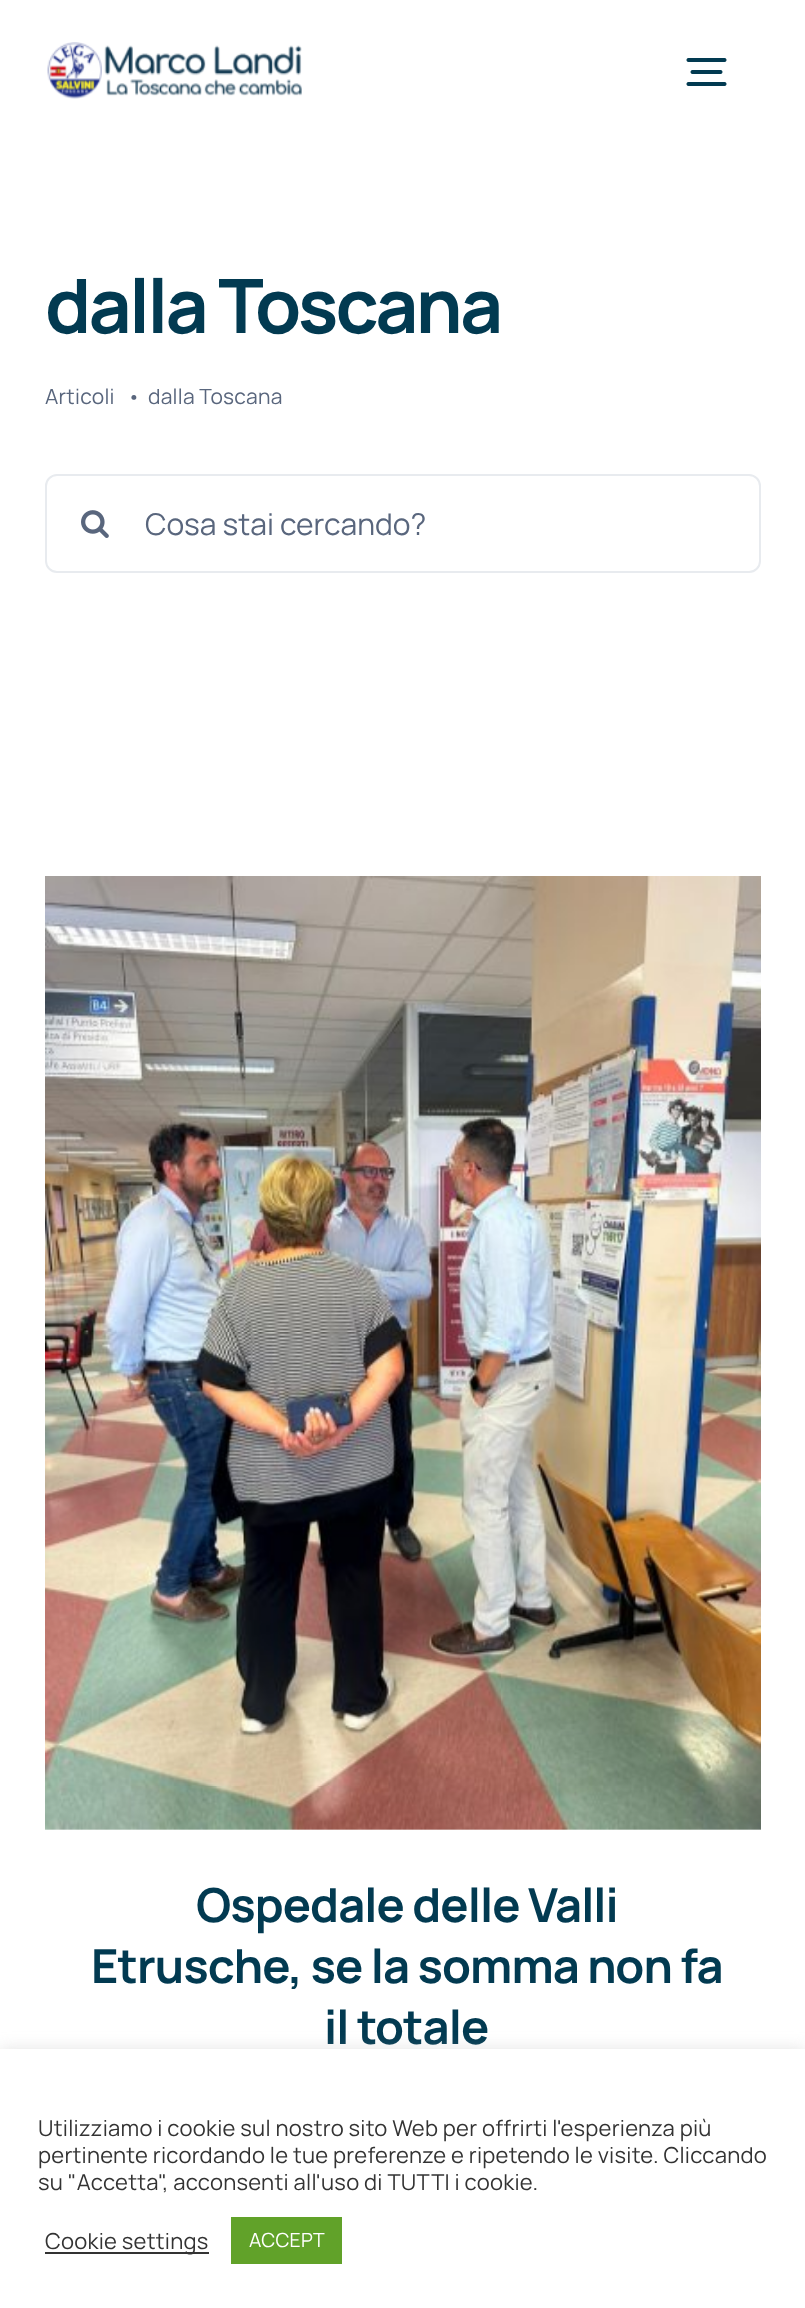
(async () => {
    const canvas = document.querySelector("canvas");
    canvas.width = 805;
    canvas.height = 2308;
    const context = canvas.getContext("2d");
    context.miterLimit = 4;
    context.fontKerning = "normal";
    function write(s, x, y, font, color) {
        context.font = font;
        context.fillStyle = color;
        context.fillText(s, x, y);
    }
    function block(x, y, w, h, color) {
        context.fillStyle = color;
        context.fillRect(x, y, w, h);
    }
    async function photo(src, x, y, w, h) {
        const img = new Image();
        img.src = src;
        await img.decode();
        context.drawImage(img, x, y, w, h);
    }

    block(0, 0, 805, 2308, "rgb(255, 255, 255)");
    await photo("media/1.png", 47, 42, 255, 57);
    await photo("media/2.png", 686, 58, 41, 28);
    context.letterSpacing = "-2.75px";
    write("dalla Toscana", 45, 333, "bold 75px Manrope", "rgb(2, 58, 81)");
    context.letterSpacing = "0.25px";
    write("Articoli", 45, 404, "21px Manrope", "rgb(89, 102, 125)");
    write("•", 127, 404, "21px Manrope", "rgb(89, 102, 125)");
    write("dalla Toscana", 148, 404, "21px Manrope", "rgb(89, 102, 125)");
    context.beginPath();
    context.roundRect(46, 475, 714, 97, 11);
    context.strokeStyle = "rgb(232, 235, 239)";
    context.lineWidth = 2;
    context.stroke();
    await photo("media/3.png", 81, 510, 28, 28);
    context.letterSpacing = "0px";
    write("Cosa stai cercando?", 145, 535, "30px Manrope", "rgb(89, 102, 125)");
    await photo("media/4.png", 45, 876, 716, 954);
    context.letterSpacing = "-0.95px";
    write("Ospedale delle Valli", 196, 1922, "bold 47px Manrope", "rgb(2, 58, 81)");
    write("Etrusche, se la somma non fa", 91, 1983, "bold 47px Manrope", "rgb(2, 58, 81)");
    write("il totale", 324, 2044, "bold 47px Manrope", "rgb(2, 58, 81)");
    context.fillStyle = "rgba(172, 171, 171, 0.3)";
    context.filter = "blur(7.5px)";
    context.beginPath();
    context.rect(0, 2048, 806, 259);
    context.fill();
    context.filter = "none";
    block(0, 2049, 805, 259, "rgb(255, 255, 255)");
    context.letterSpacing = "0.25px";
    write("Utilizziamo i cookie sul nostro sito Web per offrirti l'esperienza più", 38, 2136, "22px Manrope", "rgb(51, 51, 51)");
    write("pertinente ricordando le tue preferenze e ripetendo le visite. Cliccando", 38, 2163, "22px Manrope", "rgb(51, 51, 51)");
    write("su \"Accetta\", acconsenti all'uso di TUTTI i cookie.", 38, 2190, "22px Manrope", "rgb(51, 51, 51)");
    block(45, 2252, 164, 2, "rgb(51, 51, 51)");
    write("Cookie settings", 45, 2249, "22px Manrope", "rgb(51, 51, 51)");
    block(231, 2217, 111, 47, "rgb(97, 162, 41)");
    write("ACCEPT", 249, 2247, "19.5px Manrope", "rgb(255, 255, 255)");
})();
